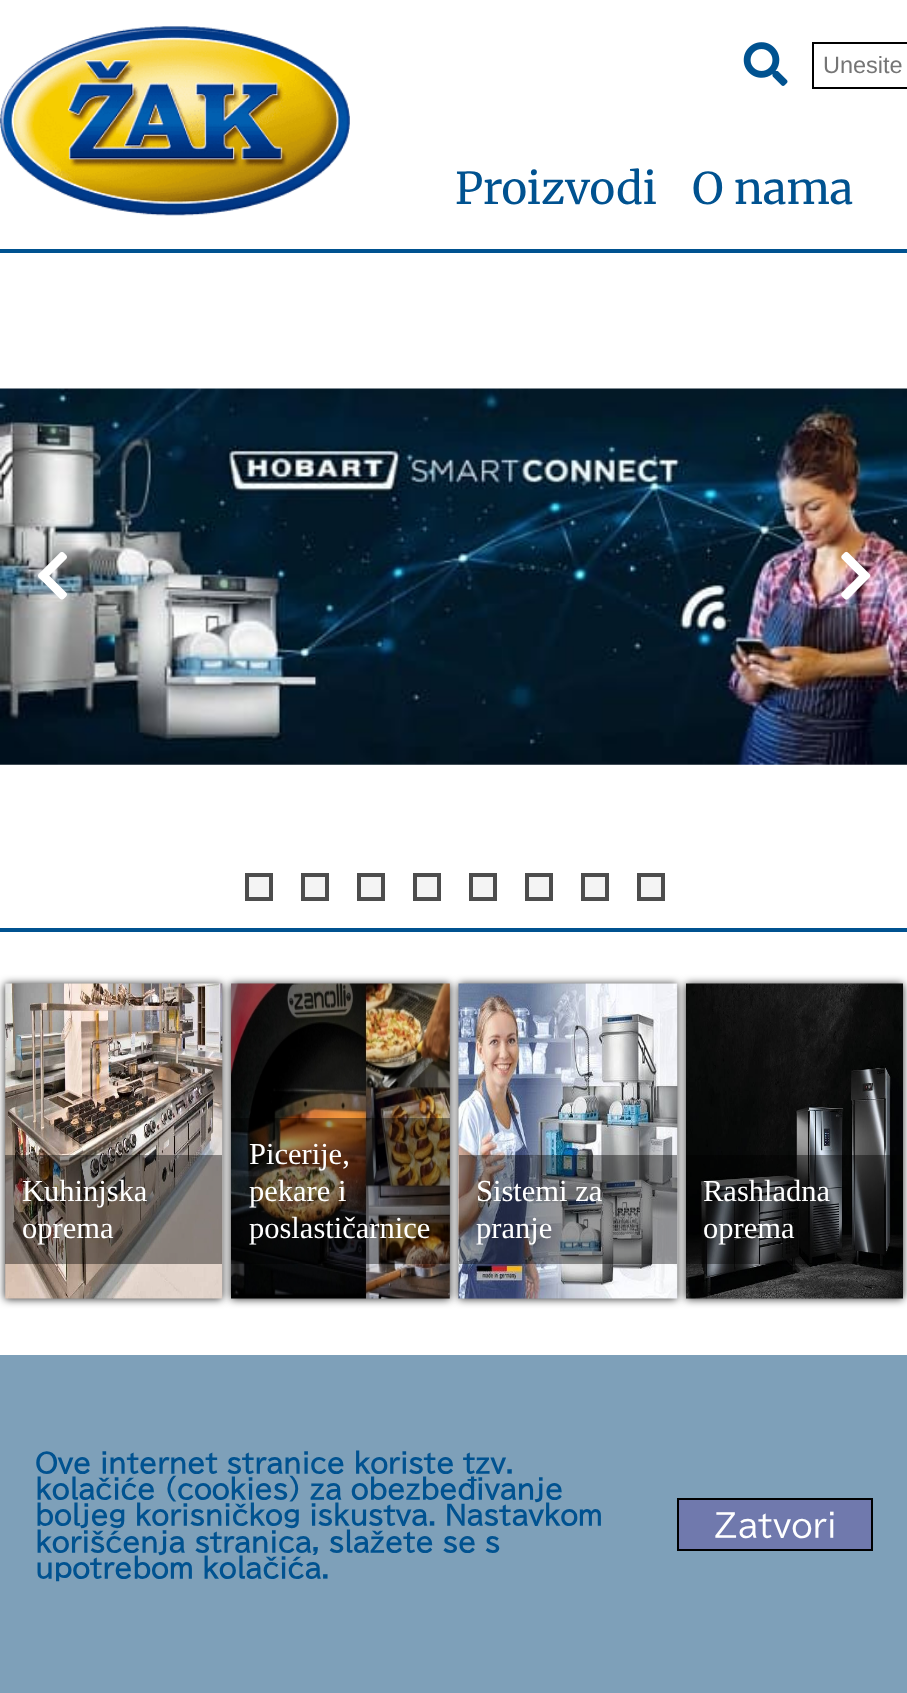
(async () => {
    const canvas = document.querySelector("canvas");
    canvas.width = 907;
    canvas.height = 1693;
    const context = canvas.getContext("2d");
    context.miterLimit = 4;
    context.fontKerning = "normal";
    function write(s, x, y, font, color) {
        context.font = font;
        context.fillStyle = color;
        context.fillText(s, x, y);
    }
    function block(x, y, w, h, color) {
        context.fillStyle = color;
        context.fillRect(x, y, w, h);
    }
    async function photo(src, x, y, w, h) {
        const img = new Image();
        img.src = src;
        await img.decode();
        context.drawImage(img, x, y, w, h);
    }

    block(0, 0, 907, 1693, "rgb(255, 255, 255)");
    block(0, 249, 907, 4, "rgb(0, 82, 144)");
    await photo("media/1.png", 0, 26, 350, 190);
    await photo("media/2.png", 743, 42, 45, 44);
    context.strokeStyle = "rgb(0, 0, 0)";
    context.lineWidth = 2;
    context.strokeRect(813, 43, 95, 45);
    write("Unesite", 823, 73, "23.5px Liberation Sans", "rgb(117, 117, 117)");
    write("Proizvodi", 455, 204, "300 43.75px Merriweather", "rgb(0, 82, 144)");
    write("O nama", 692, 204, "300 43.75px Merriweather", "rgb(0, 82, 144)");
    block(0, 928, 907, 4, "rgb(0, 82, 144)");
    await photo("media/3.png", 0, 388, 907, 377);
    await photo("media/4.png", 38, 552, 29, 48);
    await photo("media/5.png", 841, 551, 30, 49);
    context.fillStyle = "rgb(244, 244, 244)";
    context.beginPath();
    context.rect(247, 875, 24, 24);
    context.fill();
    context.strokeStyle = "rgb(77, 77, 77)";
    context.lineWidth = 4;
    context.stroke();
    context.beginPath();
    context.rect(303, 875, 24, 24);
    context.fill();
    context.stroke();
    context.beginPath();
    context.rect(359, 875, 24, 24);
    context.fill();
    context.stroke();
    context.beginPath();
    context.rect(415, 875, 24, 24);
    context.fill();
    context.stroke();
    context.beginPath();
    context.rect(471, 875, 24, 24);
    context.fill();
    context.stroke();
    context.beginPath();
    context.rect(527, 875, 24, 24);
    context.fill();
    context.stroke();
    context.beginPath();
    context.rect(583, 875, 24, 24);
    context.fill();
    context.stroke();
    context.beginPath();
    context.rect(639, 875, 24, 24);
    context.fill();
    context.stroke();
    context.fillStyle = "rgba(0, 0, 0, 0.84)";
    context.filter = "blur(4.5px)";
    context.beginPath();
    context.rect(5, 984, 217, 315);
    context.fill();
    context.filter = "none";
    await photo("media/6.png", 5, 983, 218, 316);
    block(5, 1155, 217, 109, "rgba(0, 0, 0, 0.4)");
    write("Kuhinjska", 22, 1201, "30.5px Liberation Serif", "rgb(255, 255, 255)");
    write("oprema", 22, 1238, "30.5px Liberation Serif", "rgb(255, 255, 255)");
    context.fillStyle = "rgba(0, 0, 0, 0.84)";
    context.filter = "blur(4.5px)";
    context.beginPath();
    context.rect(231, 984, 219, 315);
    context.fill();
    context.filter = "none";
    await photo("media/7.png", 231, 983, 219, 316);
    block(231, 1118, 219, 146, "rgba(0, 0, 0, 0.4)");
    write("Picerije,", 249, 1164, "30.5px Liberation Serif", "rgb(255, 255, 255)");
    write("pekare i", 249, 1201, "30.5px Liberation Serif", "rgb(255, 255, 255)");
    write("poslastičarnice", 249, 1238, "30.5px Liberation Serif", "rgb(255, 255, 255)");
    context.fillStyle = "rgba(0, 0, 0, 0.84)";
    context.filter = "blur(4.5px)";
    context.beginPath();
    context.rect(459, 984, 218, 315);
    context.fill();
    context.filter = "none";
    await photo("media/8.png", 458, 983, 220, 316);
    block(459, 1155, 218, 109, "rgba(0, 0, 0, 0.4)");
    write("Sistemi za", 476, 1201, "30.5px Liberation Serif", "rgb(255, 255, 255)");
    write("pranje", 476, 1238, "30.5px Liberation Serif", "rgb(255, 255, 255)");
    context.fillStyle = "rgba(0, 0, 0, 0.84)";
    context.filter = "blur(4.5px)";
    context.beginPath();
    context.rect(686, 984, 217, 315);
    context.fill();
    context.filter = "none";
    await photo("media/9.png", 686, 983, 217, 316);
    block(686, 1155, 217, 109, "rgba(0, 0, 0, 0.4)");
    write("Rashladna", 703, 1201, "30.5px Liberation Serif", "rgb(255, 255, 255)");
    write("oprema", 703, 1238, "30.5px Liberation Serif", "rgb(255, 255, 255)");
    block(0, 1355, 907, 338, "rgb(126, 160, 185)");
    write("Ove internet stranice koriste tzv.", 35, 1473, "bold 26.25px BIZ UDPGothic", "rgb(0, 82, 144)");
    write("kolačiće (cookies) za obezbeđivanje", 35, 1499, "bold 26.25px BIZ UDPGothic", "rgb(0, 82, 144)");
    write("boljeg korisničkog iskustva. Nastavkom", 35, 1525, "bold 26.25px BIZ UDPGothic", "rgb(0, 82, 144)");
    write("korišćenja stranica, slažete se s", 35, 1552, "bold 26.25px BIZ UDPGothic", "rgb(0, 82, 144)");
    write("upotrebom kolačića.", 35, 1578, "bold 26.25px BIZ UDPGothic", "rgb(0, 82, 144)");
    context.fillStyle = "rgb(112, 121, 173)";
    context.beginPath();
    context.rect(678, 1499, 194, 51);
    context.fill();
    context.strokeStyle = "rgb(0, 0, 0)";
    context.lineWidth = 2;
    context.stroke();
    write("Zatvori", 714, 1537, "31.5px BIZ UDPGothic", "rgb(255, 255, 255)");
})();
